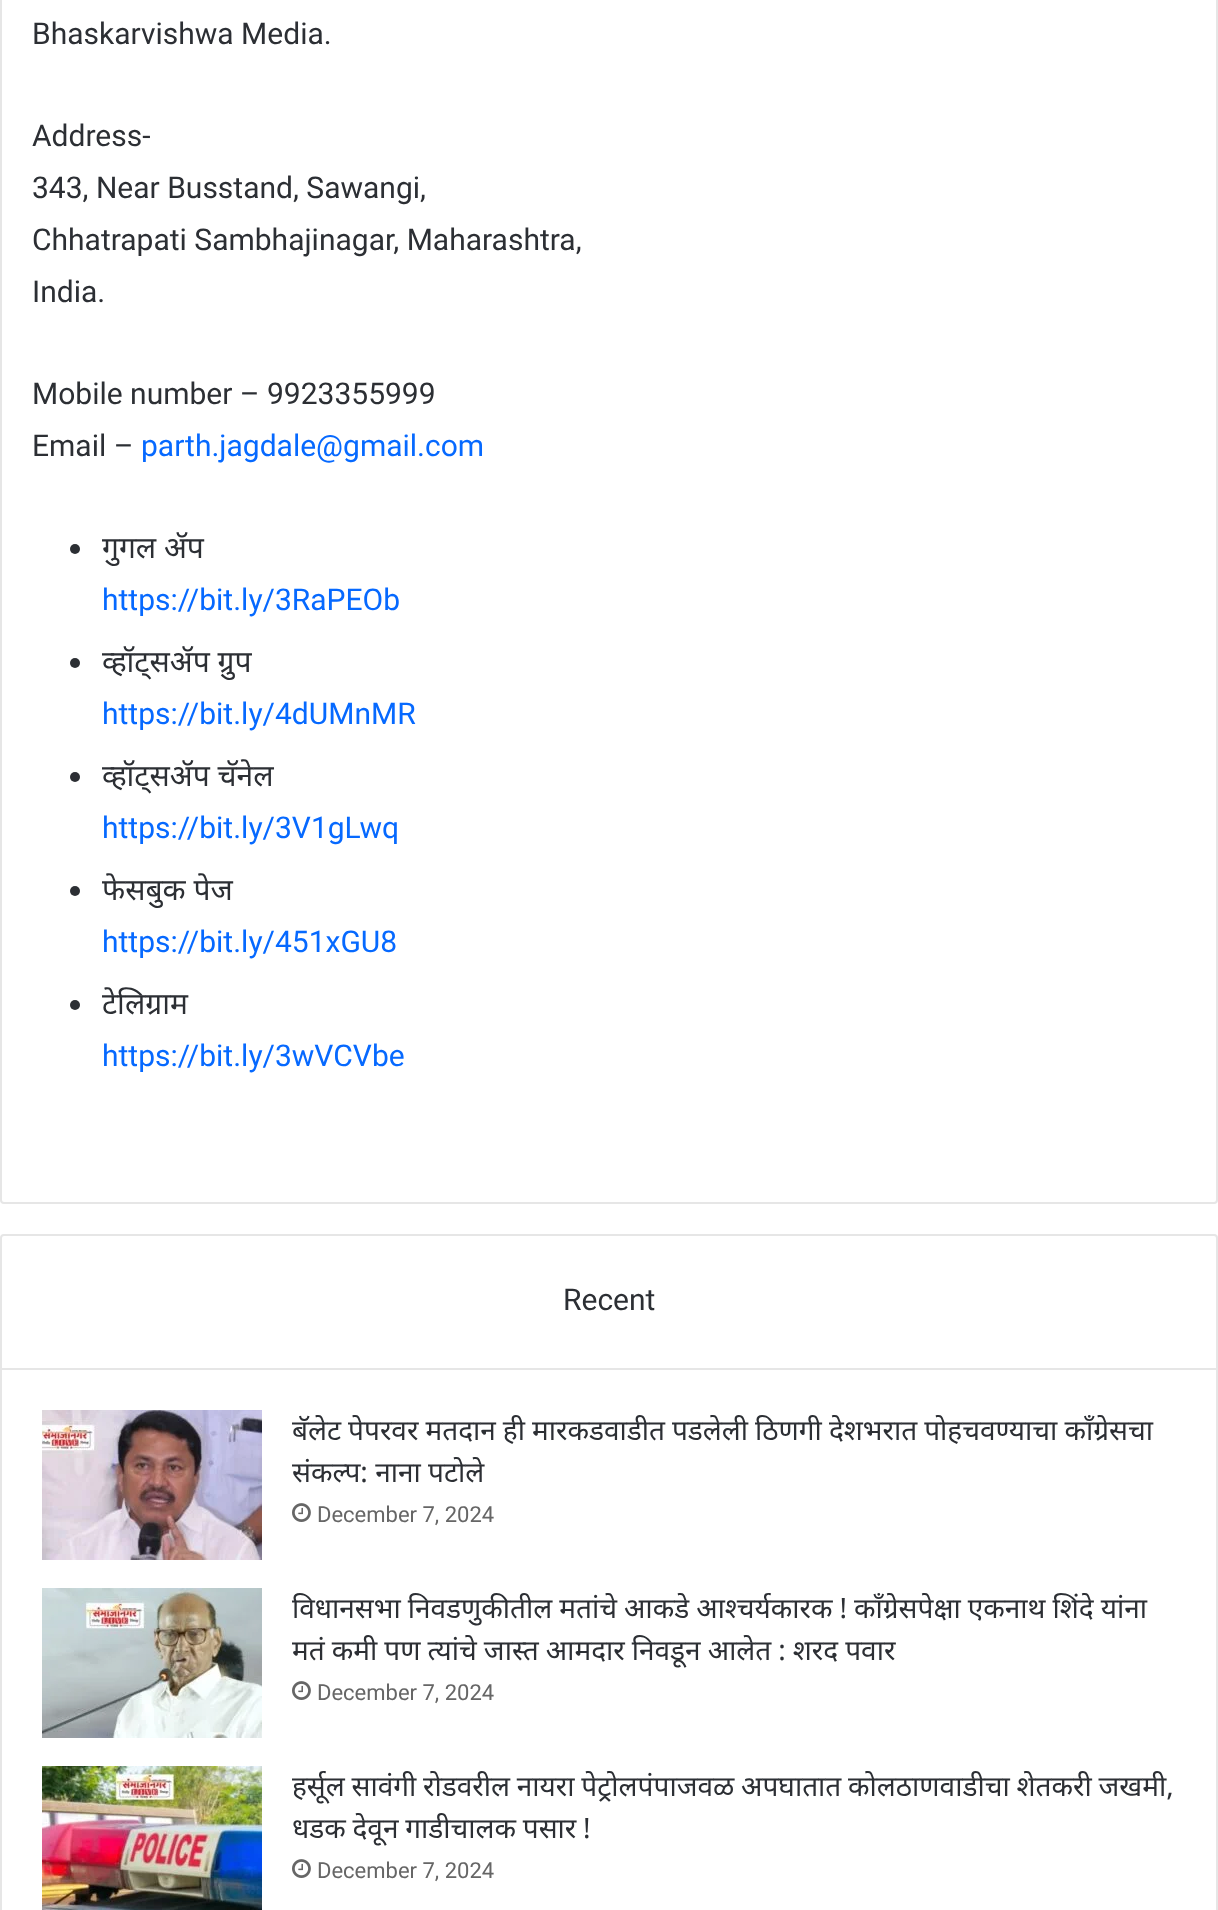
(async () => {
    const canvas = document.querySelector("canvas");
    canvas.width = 1218;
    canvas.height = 1910;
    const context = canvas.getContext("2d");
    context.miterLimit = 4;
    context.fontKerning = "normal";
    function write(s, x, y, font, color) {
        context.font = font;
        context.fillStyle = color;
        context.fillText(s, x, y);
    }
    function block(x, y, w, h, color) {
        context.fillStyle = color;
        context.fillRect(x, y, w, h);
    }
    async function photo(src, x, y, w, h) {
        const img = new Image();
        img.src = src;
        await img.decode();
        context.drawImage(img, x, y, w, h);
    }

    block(0, 0, 1218, 1910, "rgb(255, 255, 255)");
    context.beginPath();
    context.roundRect(1, -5, 1216, 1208, 3);
    context.strokeStyle = "rgb(230, 230, 230)";
    context.lineWidth = 2;
    context.stroke();
    write("Bhaskarvishwa Media.", 32, 44, "30px Roboto", "rgb(44, 47, 52)");
    write("Address-", 32, 146, "30px Roboto", "rgb(44, 47, 52)");
    write("343, Near Busstand, Sawangi,", 32, 198, "30px Roboto", "rgb(44, 47, 52)");
    write("Chhatrapati Sambhajinagar, Maharashtra,", 32, 250, "30px Roboto", "rgb(44, 47, 52)");
    write("India.", 32, 302, "30px Roboto", "rgb(44, 47, 52)");
    write("Mobile number – 9923355999", 32, 404, "30px Roboto", "rgb(44, 47, 52)");
    write("Email –", 32, 456, "30px Roboto", "rgb(44, 47, 52)");
    write("parth.jagdale@gmail.com", 141, 456, "30px Roboto", "rgb(6, 105, 255)");
    context.fillStyle = "rgb(44, 47, 52)";
    context.beginPath();
    context.arc(75, 549, 5, 0, Math.PI * 2);
    context.fill();
    write("गुगल ॲप", 102, 558, "30px Noto Sans", "rgb(44, 47, 52)");
    write("https://bit.ly/3RaPEOb", 102, 610, "30px Roboto", "rgb(6, 105, 255)");
    context.fillStyle = "rgb(44, 47, 52)";
    context.beginPath();
    context.arc(75, 663, 5, 0, Math.PI * 2);
    context.fill();
    write("व्हॉट्सॲप ग्रुप", 102, 672, "30px Noto Sans", "rgb(44, 47, 52)");
    write("https://bit.ly/4dUMnMR", 102, 724, "30px Roboto", "rgb(6, 105, 255)");
    context.fillStyle = "rgb(44, 47, 52)";
    context.beginPath();
    context.arc(75, 777, 5, 0, Math.PI * 2);
    context.fill();
    write("व्हॉट्सॲप चॅनेल", 102, 786, "30px Noto Sans", "rgb(44, 47, 52)");
    write("https://bit.ly/3V1gLwq", 102, 838, "30px Roboto", "rgb(6, 105, 255)");
    context.fillStyle = "rgb(44, 47, 52)";
    context.beginPath();
    context.arc(75, 891, 5, 0, Math.PI * 2);
    context.fill();
    write("फेसबुक पेज", 102, 900, "30px Noto Sans", "rgb(44, 47, 52)");
    write("https://bit.ly/451xGU8", 102, 952, "30px Roboto", "rgb(6, 105, 255)");
    context.fillStyle = "rgb(44, 47, 52)";
    context.beginPath();
    context.arc(75, 1005, 5, 0, Math.PI * 2);
    context.fill();
    write("टेलिग्राम", 102, 1014, "30px Noto Sans", "rgb(44, 47, 52)");
    write("https://bit.ly/3wVCVbe", 102, 1066, "30px Roboto", "rgb(6, 105, 255)");
    context.beginPath();
    context.roundRect(1, 1235, 1216, 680, 3);
    context.stroke();
    block(2, 1368, 1214, 2, "rgb(230, 230, 230)");
    write("Recent", 563, 1310, "30px Roboto", "rgb(44, 47, 52)");
    await photo("media/1.png", 42, 1410, 220, 150);
    context.wordSpacing = "-0.25px";
    write("बॅलेट पेपरवर मतदान ही मारकडवाडीत पडलेली ठिणगी देशभरात पोहचवण्याचा काँग्रेसचा", 292, 1440, "28px Noto Sans", "rgb(44, 47, 52)");
    context.wordSpacing = "0px";
    write("संकल्प: नाना पटोले", 292, 1482, "28px Noto Sans", "rgb(44, 47, 52)");
    await photo("media/2.png", 292, 1503, 19, 19);
    write("December 7, 2024", 317, 1522, "22px Roboto", "rgb(102, 102, 102)");
    await photo("media/3.png", 42, 1588, 220, 150);
    context.wordSpacing = "-0.25px";
    write("विधानसभा निवडणुकीतील मतांचे आकडे आश्चर्यकारक ! काँग्रेसपेक्षा एकनाथ शिंदे यांना", 292, 1618, "28px Noto Sans", "rgb(44, 47, 52)");
    write("मतं कमी पण त्यांचे जास्त आमदार निवडून आलेत : शरद पवार", 292, 1660, "28px Noto Sans", "rgb(44, 47, 52)");
    await photo("media/2.png", 292, 1681, 19, 19);
    context.wordSpacing = "0px";
    write("December 7, 2024", 317, 1700, "22px Roboto", "rgb(102, 102, 102)");
    await photo("media/4.png", 42, 1766, 220, 144);
    context.wordSpacing = "-0.5px";
    write("हर्सूल सावंगी रोडवरील नायरा पेट्रोलपंपाजवळ अपघातात कोलठाणवाडीचा शेतकरी जखमी,", 292, 1796, "28px Noto Sans", "rgb(44, 47, 52)");
    write("धडक देवून गाडीचालक पसार !", 292, 1838, "28px Noto Sans", "rgb(44, 47, 52)");
    await photo("media/2.png", 292, 1859, 19, 19);
    context.wordSpacing = "0px";
    write("December 7, 2024", 317, 1878, "22px Roboto", "rgb(102, 102, 102)");
})();
